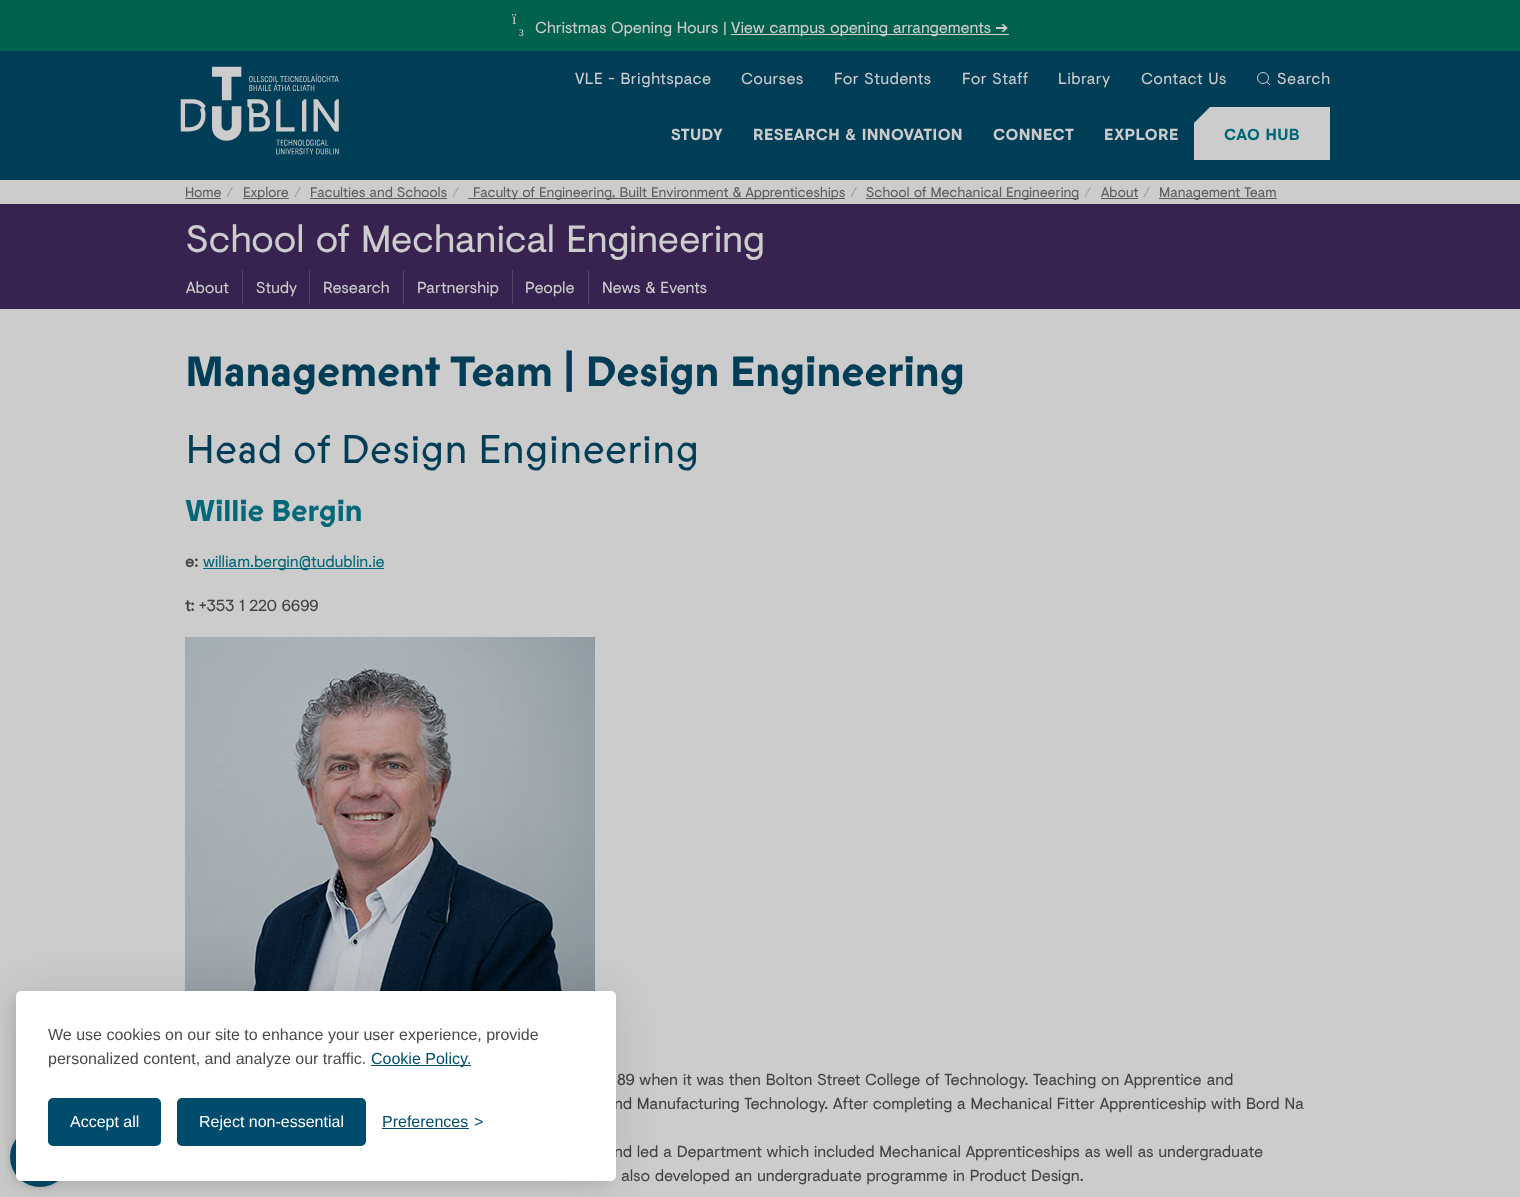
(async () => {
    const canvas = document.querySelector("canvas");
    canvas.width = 1520;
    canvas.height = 1197;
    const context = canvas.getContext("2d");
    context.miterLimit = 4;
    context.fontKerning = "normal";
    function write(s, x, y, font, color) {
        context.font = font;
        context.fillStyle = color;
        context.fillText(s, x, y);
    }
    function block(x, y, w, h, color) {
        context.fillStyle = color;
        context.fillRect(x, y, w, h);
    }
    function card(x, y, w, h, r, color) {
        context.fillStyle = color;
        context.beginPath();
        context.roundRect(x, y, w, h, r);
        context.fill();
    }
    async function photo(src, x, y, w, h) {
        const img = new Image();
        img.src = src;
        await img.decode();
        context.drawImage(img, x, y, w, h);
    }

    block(0, 0, 1520, 1197, "rgb(204, 204, 204)");
    block(0, 0, 1520, 51, "rgb(0, 97, 76)");
    write("ï", 512, 24, "16px Liberation Serif", "rgb(204, 204, 204)");
    write("³", 519, 40, "16px Liberation Serif", "rgb(204, 204, 204)");
    write("Christmas Opening Hours |", 535, 33, "16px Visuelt", "rgb(204, 204, 204)");
    block(731, 34, 278, 1, "rgb(204, 204, 204)");
    write("View campus opening arrangements", 731, 33, "16px Visuelt", "rgb(204, 204, 204)");
    write("➔", 995, 33, "16px DejaVu Sans", "rgb(204, 204, 204)");
    block(0, 51, 1520, 129, "rgb(0, 61, 86)");
    await photo("media/1.png", 180, 66, 159, 89);
    context.letterSpacing = "0.5px";
    write("VLE - Brightspace", 575, 84, "16px Visuelt", "rgb(204, 204, 204)");
    write("Courses", 741, 84, "16px Visuelt", "rgb(204, 204, 204)");
    write("For Students", 834, 84, "16px Visuelt", "rgb(204, 204, 204)");
    write("For Staff", 962, 84, "16px Visuelt", "rgb(204, 204, 204)");
    write("Library", 1058, 84, "16px Visuelt", "rgb(204, 204, 204)");
    write("Contact Us", 1141, 84, "16px Visuelt", "rgb(204, 204, 204)");
    context.beginPath();
    context.moveTo(1267, 82);
    context.lineTo(1270, 85);
    context.strokeStyle = "rgb(204, 204, 204)";
    context.stroke();
    context.beginPath();
    context.arc(1263, 78, 5.5, 0, Math.PI * 2);
    context.stroke();
    write("Search", 1277, 84, "16px Visuelt", "rgb(204, 204, 204)");
    write("STUDY", 671, 140, "bold 16px 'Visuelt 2'", "rgb(204, 204, 204)");
    write("RESEARCH & INNOVATION", 753, 140, "bold 16px 'Visuelt 2'", "rgb(204, 204, 204)");
    write("CONNECT", 993, 140, "bold 16px 'Visuelt 2'", "rgb(204, 204, 204)");
    write("EXPLORE", 1104, 140, "bold 16px 'Visuelt 2'", "rgb(204, 204, 204)");
    context.beginPath();
    context.moveTo(1210, 107);
    context.lineTo(1194, 123);
    context.lineTo(1194, 160);
    context.lineTo(1330, 160);
    context.lineTo(1330, 107);
    context.closePath();
    context.fill();
    write("CAO HUB", 1224, 140, "bold 16px 'Visuelt 2'", "rgb(0, 104, 120)");
    context.letterSpacing = "0px";
    write("Home", 185, 197, "14px Visuelt", "rgb(94, 94, 94)");
    block(185, 198, 36, 1, "rgb(94, 94, 94)");
    write("/", 226, 197, "14px Visuelt", "rgb(163, 163, 163)");
    block(243, 198, 46, 1, "rgb(94, 94, 94)");
    write("Explore", 243, 197, "14px Visuelt", "rgb(94, 94, 94)");
    write("/", 294, 197, "14px Visuelt", "rgb(163, 163, 163)");
    write("Faculties and Schools", 310, 197, "14px Visuelt", "rgb(94, 94, 94)");
    block(310, 198, 137, 1, "rgb(94, 94, 94)");
    write("/", 452, 197, "14px Visuelt", "rgb(163, 163, 163)");
    block(468, 198, 377, 1, "rgb(94, 94, 94)");
    write("Faculty of Engineering, Built Environment & Apprenticeships", 473, 197, "14px Visuelt", "rgb(94, 94, 94)");
    write("/", 850, 197, "14px Visuelt", "rgb(163, 163, 163)");
    block(866, 198, 213, 1, "rgb(94, 94, 94)");
    write("School of Mechanical Engineering", 866, 197, "14px Visuelt", "rgb(94, 94, 94)");
    write("/", 1084, 197, "14px Visuelt", "rgb(163, 163, 163)");
    write("About", 1101, 197, "14px Visuelt", "rgb(94, 94, 94)");
    block(1101, 198, 37, 1, "rgb(94, 94, 94)");
    write("/", 1143, 197, "14px Visuelt", "rgb(163, 163, 163)");
    block(1159, 198, 118, 1, "rgb(94, 94, 94)");
    write("Management Team", 1159, 197, "14px Visuelt", "rgb(94, 94, 94)");
    block(0, 204, 1520, 105, "rgb(55, 34, 80)");
    write("School of Mechanical Engineering", 186, 252, "38px Visuelt", "rgb(204, 204, 204)");
    write("About", 186, 293, "16px Visuelt", "rgb(204, 204, 204)");
    block(242, 270, 1, 34, "rgb(85, 68, 105)");
    write("Study", 256, 293, "16px Visuelt", "rgb(204, 204, 204)");
    block(309, 270, 1, 34, "rgb(85, 68, 105)");
    write("Research", 323, 293, "16px Visuelt", "rgb(204, 204, 204)");
    block(403, 270, 1, 34, "rgb(85, 68, 105)");
    write("Partnership", 417, 293, "16px Visuelt", "rgb(204, 204, 204)");
    block(512, 270, 1, 34, "rgb(85, 68, 105)");
    write("People", 525, 293, "16px Visuelt", "rgb(204, 204, 204)");
    block(588, 270, 1, 34, "rgb(85, 68, 105)");
    write("News & Events", 602, 293, "16px Visuelt", "rgb(204, 204, 204)");
    write("Management Team | Design Engineering", 185, 386, "bold 42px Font", "rgb(0, 61, 86)");
    write("Head of Design Engineering", 185, 463, "40px Font", "rgb(0, 61, 86)");
    write("Willie Bergin", 185, 521, "bold 30px Font", "rgb(0, 104, 120)");
    write("e:", 185, 567, "bold 16px Visuelt", "rgb(68, 68, 68)");
    block(203, 568, 181, 1, "rgb(0, 104, 120)");
    write("william.bergin@tudublin.ie", 203, 567, "16px Visuelt", "rgb(0, 104, 120)");
    write("t:", 185, 611, "bold 16px Visuelt", "rgb(68, 68, 68)");
    write("+353 1 220 6699", 199, 611, "16px Visuelt", "rgb(68, 68, 68)");
    await photo("media/2.png", 185, 637, 410, 354);
    write("89 when it was then Bolton Street College of Technology. Teaching on Apprentice and", 617, 1085, "16px Visuelt", "rgb(68, 68, 68)");
    write("nd Manufacturing Technology. After completing a Mechanical Fitter Apprenticeship with Bord Na", 614, 1109, "16px Visuelt", "rgb(68, 68, 68)");
    write("nd led a Department which included Mechanical Apprenticeships as well as undergraduate", 614, 1157, "16px Visuelt", "rgb(68, 68, 68)");
    write("also developed an undergraduate programme in Product Design.", 621, 1181, "16px Visuelt", "rgb(68, 68, 68)");
    context.fillStyle = "rgba(0, 0, 0, 0.1)";
    context.filter = "blur(3px)";
    context.beginPath();
    context.roundRect(10, 1127, 60, 60, 30);
    context.fill();
    context.filter = "none";
    context.fillStyle = "rgb(0, 76, 108)";
    context.beginPath();
    context.arc(40, 1157, 30, 0, Math.PI * 2);
    context.fill();
    context.fillStyle = "rgba(0, 0, 0, 0.1)";
    context.filter = "blur(25px)";
    context.beginPath();
    context.roundRect(16, 991, 600, 190, 5);
    context.fill();
    context.filter = "none";
    context.fillStyle = "rgba(0, 0, 0, 0.07)";
    context.filter = "blur(5px)";
    context.beginPath();
    context.roundRect(11, 996, 600, 190, 5);
    context.fill();
    context.filter = "none";
    card(16, 991, 600, 190, 5, "rgb(255, 255, 255)");
    write("We use cookies on our site to enhance your user experience, provide", 48, 1040, "16px Liberation Sans", "rgb(75, 73, 75)");
    write("personalized content, and analyze our traffic.", 48, 1064, "16px Liberation Sans", "rgb(75, 73, 75)");
    block(371, 1065, 100, 1, "rgb(0, 76, 108)");
    write("Cookie Policy.", 371, 1064, "16px Liberation Sans", "rgb(0, 76, 108)");
    context.beginPath();
    context.roundRect(49, 1099, 111, 46, 4);
    context.fill();
    context.strokeStyle = "rgb(0, 76, 108)";
    context.lineWidth = 2;
    context.stroke();
    write("Accept all", 70, 1127, "16px Liberation Sans", "rgb(255, 255, 255)");
    context.fillStyle = "rgb(0, 76, 108)";
    context.beginPath();
    context.roundRect(178, 1099, 187, 46, 4);
    context.fill();
    context.stroke();
    write("Reject non-essential", 199, 1127, "16px Liberation Sans", "rgb(255, 255, 255)");
    write("Preferences", 382, 1127, "16px Liberation Sans", "rgb(0, 76, 108)");
    block(382, 1128, 87, 1, "rgb(0, 76, 108)");
    write(">", 474, 1127, "16px Liberation Sans", "rgb(0, 76, 108)");
})();
